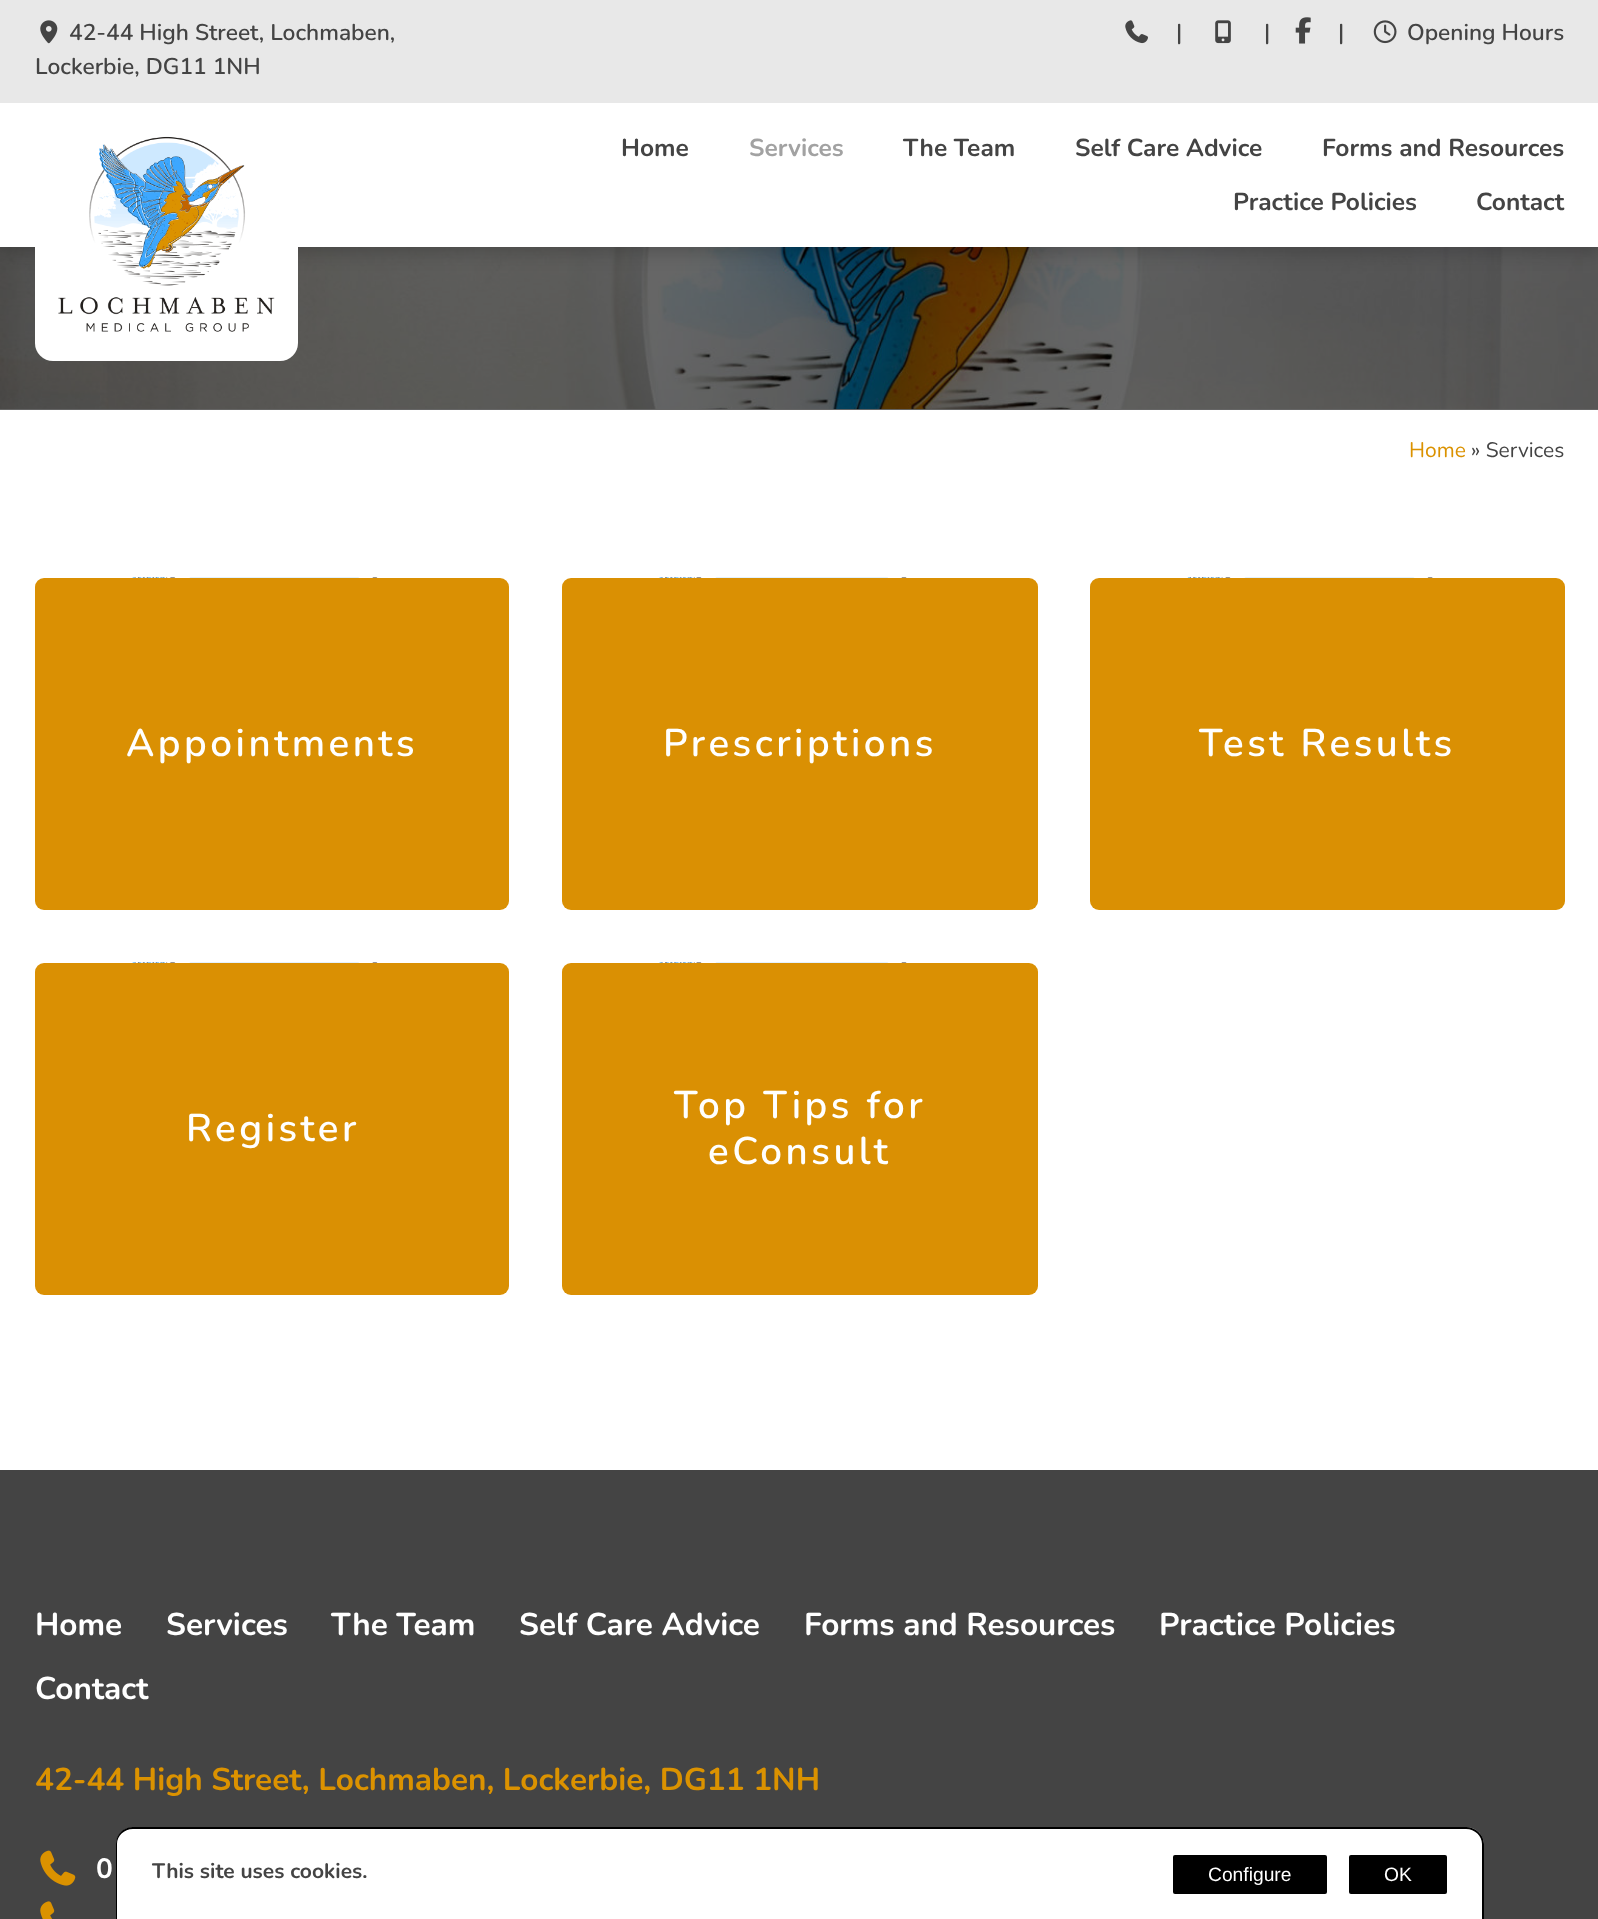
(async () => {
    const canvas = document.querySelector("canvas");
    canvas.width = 1598;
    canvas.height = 1919;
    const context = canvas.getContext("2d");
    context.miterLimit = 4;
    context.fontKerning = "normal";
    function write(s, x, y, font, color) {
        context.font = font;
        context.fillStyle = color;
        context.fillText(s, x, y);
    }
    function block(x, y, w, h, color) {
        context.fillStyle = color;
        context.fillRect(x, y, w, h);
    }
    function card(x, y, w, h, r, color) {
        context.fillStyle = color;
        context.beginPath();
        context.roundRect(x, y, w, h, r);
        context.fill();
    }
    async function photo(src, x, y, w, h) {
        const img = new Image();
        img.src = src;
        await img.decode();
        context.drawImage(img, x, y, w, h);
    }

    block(0, 0, 1598, 1919, "rgb(255, 255, 255)");
    block(0, 409, 1598, 1, "rgb(102, 102, 102)");
    await photo("media/7.png", 0, 247, 1598, 163);
    context.fillStyle = "rgba(0, 0, 0, 0.2)";
    context.filter = "blur(9px)";
    context.beginPath();
    context.rect(0, 5, 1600, 247);
    context.fill();
    context.filter = "none";
    block(0, 103, 1598, 144, "rgb(255, 255, 255)");
    block(0, 0, 1598, 103, "rgb(232, 232, 232)");
    await photo("media/1.png", 40, 20, 18, 24);
    write("42-44 High Street, Lochmaben,", 69, 40, "600 22.75px Nunito", "rgb(68, 68, 68)");
    write("Lockerbie, DG11 1NH", 35, 74, "600 22.75px Nunito", "rgb(68, 68, 68)");
    await photo("media/2.png", 1125, 20, 23, 24);
    write("|", 1176, 40, "600 22.75px Nunito", "rgb(68, 68, 68)");
    await photo("media/3.png", 1215, 20, 16, 24);
    write("|", 1264, 40, "600 22.75px Nunito", "rgb(68, 68, 68)");
    await photo("media/4.png", 1295, 17, 16, 27);
    write("|", 1338, 40, "600 22.75px Nunito", "rgb(68, 68, 68)");
    await photo("media/5.png", 1373, 20, 24, 24);
    write("Opening Hours", 1407, 40, "600 22.75px Nunito", "rgb(68, 68, 68)");
    card(35, 121, 263, 240, 18, "rgb(255, 255, 255)");
    await photo("media/6.png", 58, 136, 217, 196);
    write("Home", 621, 156, "bold 24.5px Nunito", "rgb(68, 68, 68)");
    write("Services", 749, 156, "bold 24.5px Nunito", "rgb(162, 162, 162)");
    write("The Team", 903, 156, "bold 24.5px Nunito", "rgb(68, 68, 68)");
    write("Self Care Advice", 1075, 156, "bold 24.5px Nunito", "rgb(68, 68, 68)");
    write("Forms and Resources", 1322, 156, "bold 24.5px Nunito", "rgb(68, 68, 68)");
    write("Practice Policies", 1233, 210, "bold 24.5px Nunito", "rgb(68, 68, 68)");
    write("Contact", 1476, 210, "bold 24.5px Nunito", "rgb(68, 68, 68)");
    write("Home", 1409, 457, "21px Nunito", "rgb(219, 146, 0)");
    write("» Services", 1471, 457, "21px Nunito", "rgb(68, 68, 68)");
    await photo("media/8.png", 132, 577, 246, 1);
    card(35, 578, 474, 332, 9, "rgb(218, 144, 3)");
    context.letterSpacing = "3.5px";
    write("Appointments", 126, 756, "600 38.5px Nunito", "rgb(255, 255, 255)");
    await photo("media/9.png", 659, 577, 248, 1);
    card(562, 578, 476, 332, 9, "rgb(218, 144, 3)");
    write("Prescriptions", 663, 756, "600 38.5px Nunito", "rgb(255, 255, 255)");
    await photo("media/10.png", 1187, 577, 246, 1);
    card(1090, 578, 475, 332, 9, "rgb(218, 144, 3)");
    write("Test Results", 1199, 756, "600 38.5px Nunito", "rgb(255, 255, 255)");
    await photo("media/8.png", 132, 962, 246, 1);
    card(35, 963, 474, 332, 9, "rgb(218, 144, 3)");
    write("Register", 186, 1141, "600 38.5px Nunito", "rgb(255, 255, 255)");
    await photo("media/9.png", 659, 962, 248, 1);
    card(562, 963, 476, 332, 9, "rgb(218, 144, 3)");
    write("Top Tips for", 674, 1118, "600 38.5px Nunito", "rgb(255, 255, 255)");
    write("eConsult", 708, 1164, "600 38.5px Nunito", "rgb(255, 255, 255)");
    block(0, 1470, 1598, 449, "rgb(68, 68, 68)");
    context.letterSpacing = "0px";
    write("Home", 35, 1635, "bold 31.5px Nunito", "rgb(255, 255, 255)");
    write("Services", 166, 1635, "bold 31.5px Nunito", "rgb(255, 255, 255)");
    write("The Team", 331, 1635, "bold 31.5px Nunito", "rgb(255, 255, 255)");
    write("Self Care Advice", 519, 1635, "bold 31.5px Nunito", "rgb(255, 255, 255)");
    write("Forms and Resources", 804, 1635, "bold 31.5px Nunito", "rgb(255, 255, 255)");
    write("Practice Policies", 1159, 1635, "bold 31.5px Nunito", "rgb(255, 255, 255)");
    write("Contact", 35, 1699, "bold 31.5px Nunito", "rgb(255, 255, 255)");
    write("42-44 High Street, Lochmaben, Lockerbie, DG11 1NH", 35, 1790, "bold 31.5px Nunito", "rgb(219, 146, 0)");
    await photo("media/11.png", 40, 1850, 36, 36);
    write("0", 96, 1878, "bold 28px Nunito", "rgb(255, 255, 255)");
    await photo("media/12.png", 40, 1901, 15, 18);
    context.beginPath();
    context.moveTo(134, 1827);
    context.lineTo(1466, 1827);
    context.bezierCurveTo(1476, 1827, 1484, 1835, 1484, 1845);
    context.lineTo(1484, 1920);
    context.lineTo(116, 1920);
    context.lineTo(116, 1845);
    context.bezierCurveTo(116, 1835, 124, 1827, 134, 1827);
    context.closePath();
    context.fill();
    context.fillStyle = "rgb(0, 0, 0)";
    context.beginPath();
    context.moveTo(133, 1827);
    context.lineTo(1466, 1827);
    context.bezierCurveTo(1476, 1827, 1484, 1835, 1484, 1844);
    context.lineTo(1484, 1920);
    context.lineTo(116, 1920);
    context.lineTo(116, 1844);
    context.bezierCurveTo(116, 1835, 123, 1827, 133, 1827);
    context.closePath();
    context.moveTo(133, 1829);
    context.lineTo(1466, 1829);
    context.bezierCurveTo(1475, 1829, 1482, 1836, 1482, 1844);
    context.lineTo(1482, 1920);
    context.lineTo(117, 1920);
    context.lineTo(117, 1844);
    context.bezierCurveTo(117, 1836, 124, 1829, 133, 1829);
    context.closePath();
    context.fill("evenodd");
    write("This site uses cookies.", 152, 1878, "bold 21px Nunito", "rgb(68, 68, 68)");
    card(1173, 1855, 154, 39, 2, "rgb(0, 0, 0)");
    write("Configure", 1208, 1881, "19.25px Liberation Sans", "rgb(255, 255, 255)");
    card(1349, 1855, 98, 39, 2, "rgb(0, 0, 0)");
    write("OK", 1384, 1881, "19.25px Liberation Sans", "rgb(255, 255, 255)");
})();
